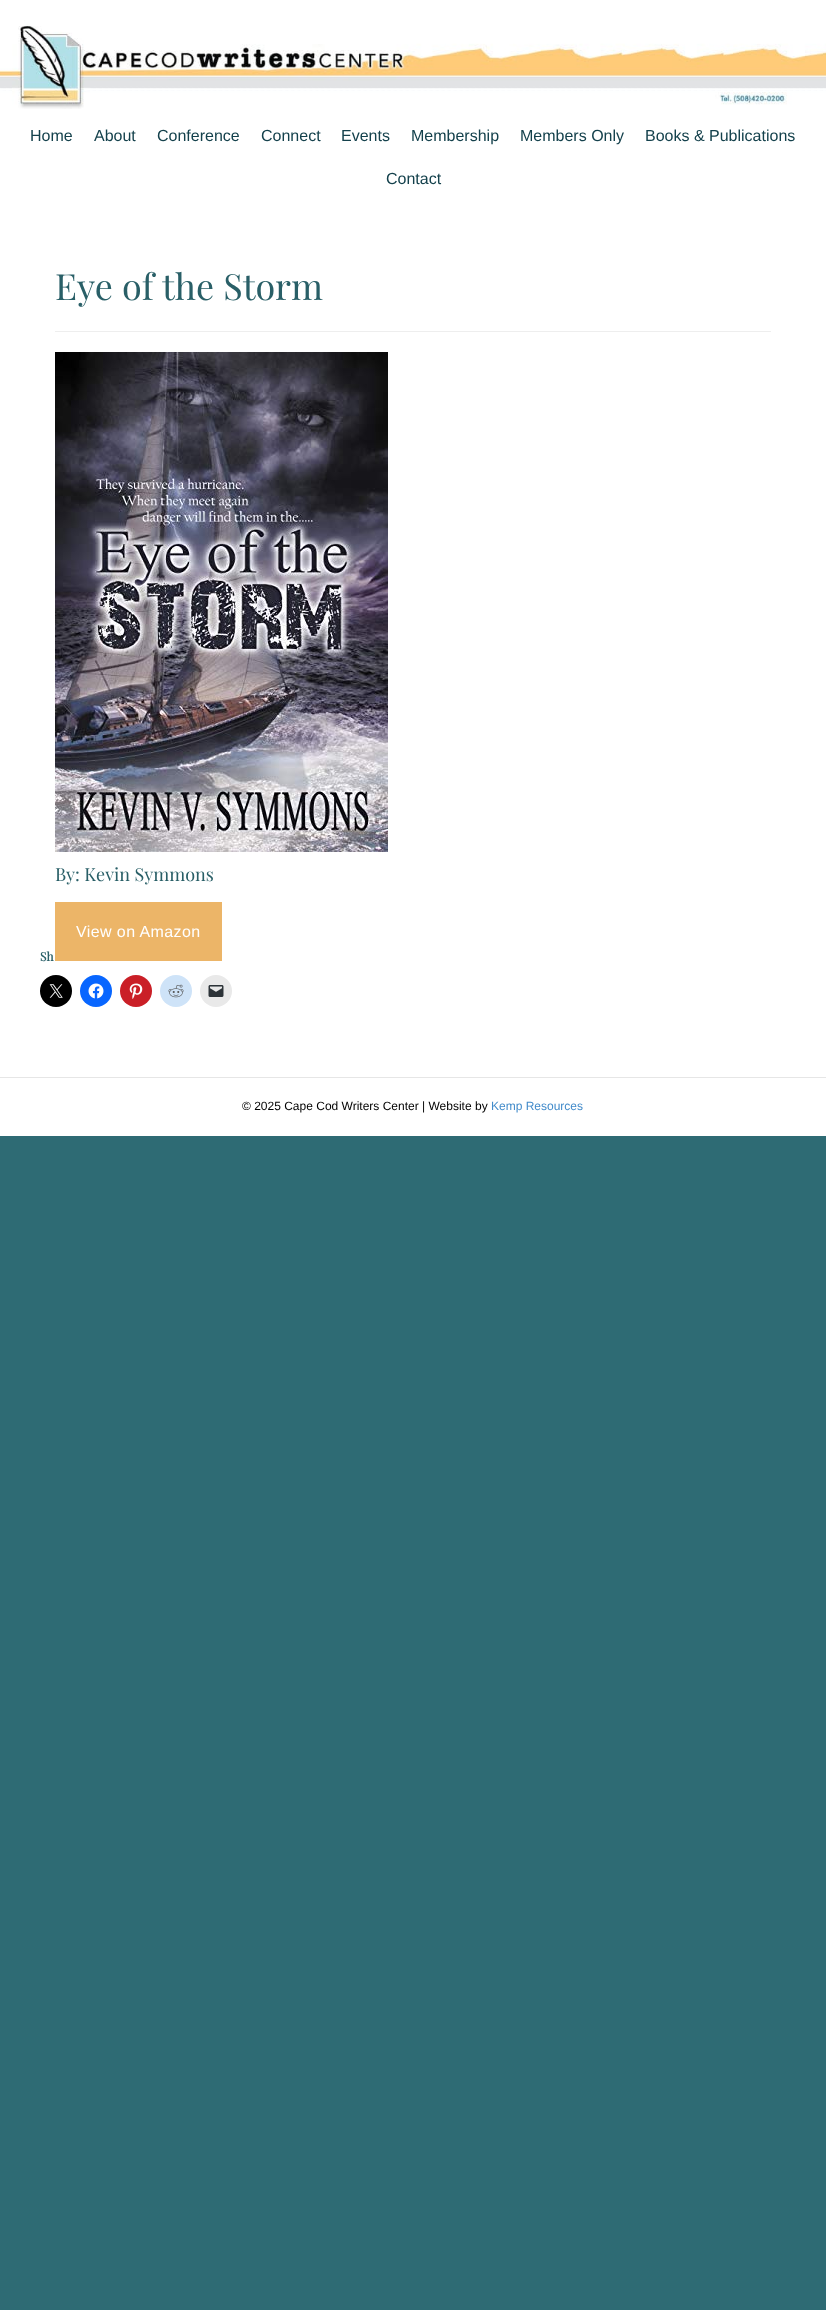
(async () => {
    const canvas = document.querySelector("canvas");
    canvas.width = 826;
    canvas.height = 2310;
    const context = canvas.getContext("2d");
    context.miterLimit = 4;
    context.fontKerning = "normal";
    function write(s, x, y, font, color) {
        context.font = font;
        context.fillStyle = color;
        context.fillText(s, x, y);
    }
    function block(x, y, w, h, color) {
        context.fillStyle = color;
        context.fillRect(x, y, w, h);
    }
    async function photo(src, x, y, w, h) {
        const img = new Image();
        img.src = src;
        await img.decode();
        context.drawImage(img, x, y, w, h);
    }

    block(0, 0, 826, 2310, "rgb(46, 107, 116)");
    block(0, 0, 826, 1077, "rgb(255, 255, 255)");
    await photo("media/1.png", 0, 20, 826, 89);
    write("Home", 30, 141, "16px Liberation Sans", "rgb(20, 65, 76)");
    write("About", 94, 141, "16px Liberation Sans", "rgb(20, 65, 76)");
    write("Conference", 157, 141, "16px Liberation Sans", "rgb(20, 65, 76)");
    write("Connect", 261, 141, "16px Liberation Sans", "rgb(20, 65, 76)");
    write("Events", 341, 141, "16px Liberation Sans", "rgb(20, 65, 76)");
    write("Membership", 411, 141, "16px Liberation Sans", "rgb(20, 65, 76)");
    write("Members Only", 520, 141, "16px Liberation Sans", "rgb(20, 65, 76)");
    write("Books & Publications", 645, 141, "16px Liberation Sans", "rgb(20, 65, 76)");
    write("Contact", 386, 184, "16px Liberation Sans", "rgb(20, 65, 76)");
    write("Eye of the Storm", 55, 300, "36px Playfair Display", "rgb(41, 95, 103)");
    block(55, 331, 716, 1, "rgb(238, 238, 238)");
    await photo("media/2.png", 55, 352, 333, 500);
    write("By: Kevin Symmons", 55, 881, "18px Playfair Display", "rgb(41, 95, 103)");
    block(55, 902, 167, 59, "rgb(236, 181, 104)");
    context.letterSpacing = "0.4px";
    write("View on Amazon", 76, 937, "16px Liberation Sans", "rgb(255, 255, 255)");
    context.letterSpacing = "0px";
    write("Sh", 40, 961, "bold 12px Playfair Display", "rgb(41, 95, 103)");
    context.fillStyle = "rgb(0, 0, 0)";
    context.beginPath();
    context.arc(56, 991, 16, 0, Math.PI * 2);
    context.fill();
    await photo("media/3.png", 49, 984, 14, 14);
    context.fillStyle = "rgb(8, 102, 255)";
    context.beginPath();
    context.arc(96, 991, 16, 0, Math.PI * 2);
    context.fill();
    await photo("media/4.png", 88, 983, 16, 16);
    context.fillStyle = "rgb(202, 31, 39)";
    context.beginPath();
    context.arc(136, 991, 16, 0, Math.PI * 2);
    context.fill();
    await photo("media/5.png", 129, 983, 14, 16);
    context.fillStyle = "rgb(206, 227, 248)";
    context.beginPath();
    context.arc(176, 991, 16, 0, Math.PI * 2);
    context.fill();
    await photo("media/6.png", 168, 984, 16, 14);
    context.fillStyle = "rgb(233, 233, 233)";
    context.beginPath();
    context.arc(216, 991, 16, 0, Math.PI * 2);
    context.fill();
    await photo("media/7.png", 208, 985, 16, 12);
    block(0, 1078, 826, 58, "rgb(255, 255, 255)");
    block(0, 1077, 826, 1, "rgb(230, 230, 230)");
    write("© 2025 Cape Cod Writers Center | Website by", 242, 1110, "12px Liberation Sans", "rgb(0, 0, 0)");
    write("Kemp Resources", 491, 1110, "12px Liberation Sans", "rgb(66, 139, 202)");
})();
